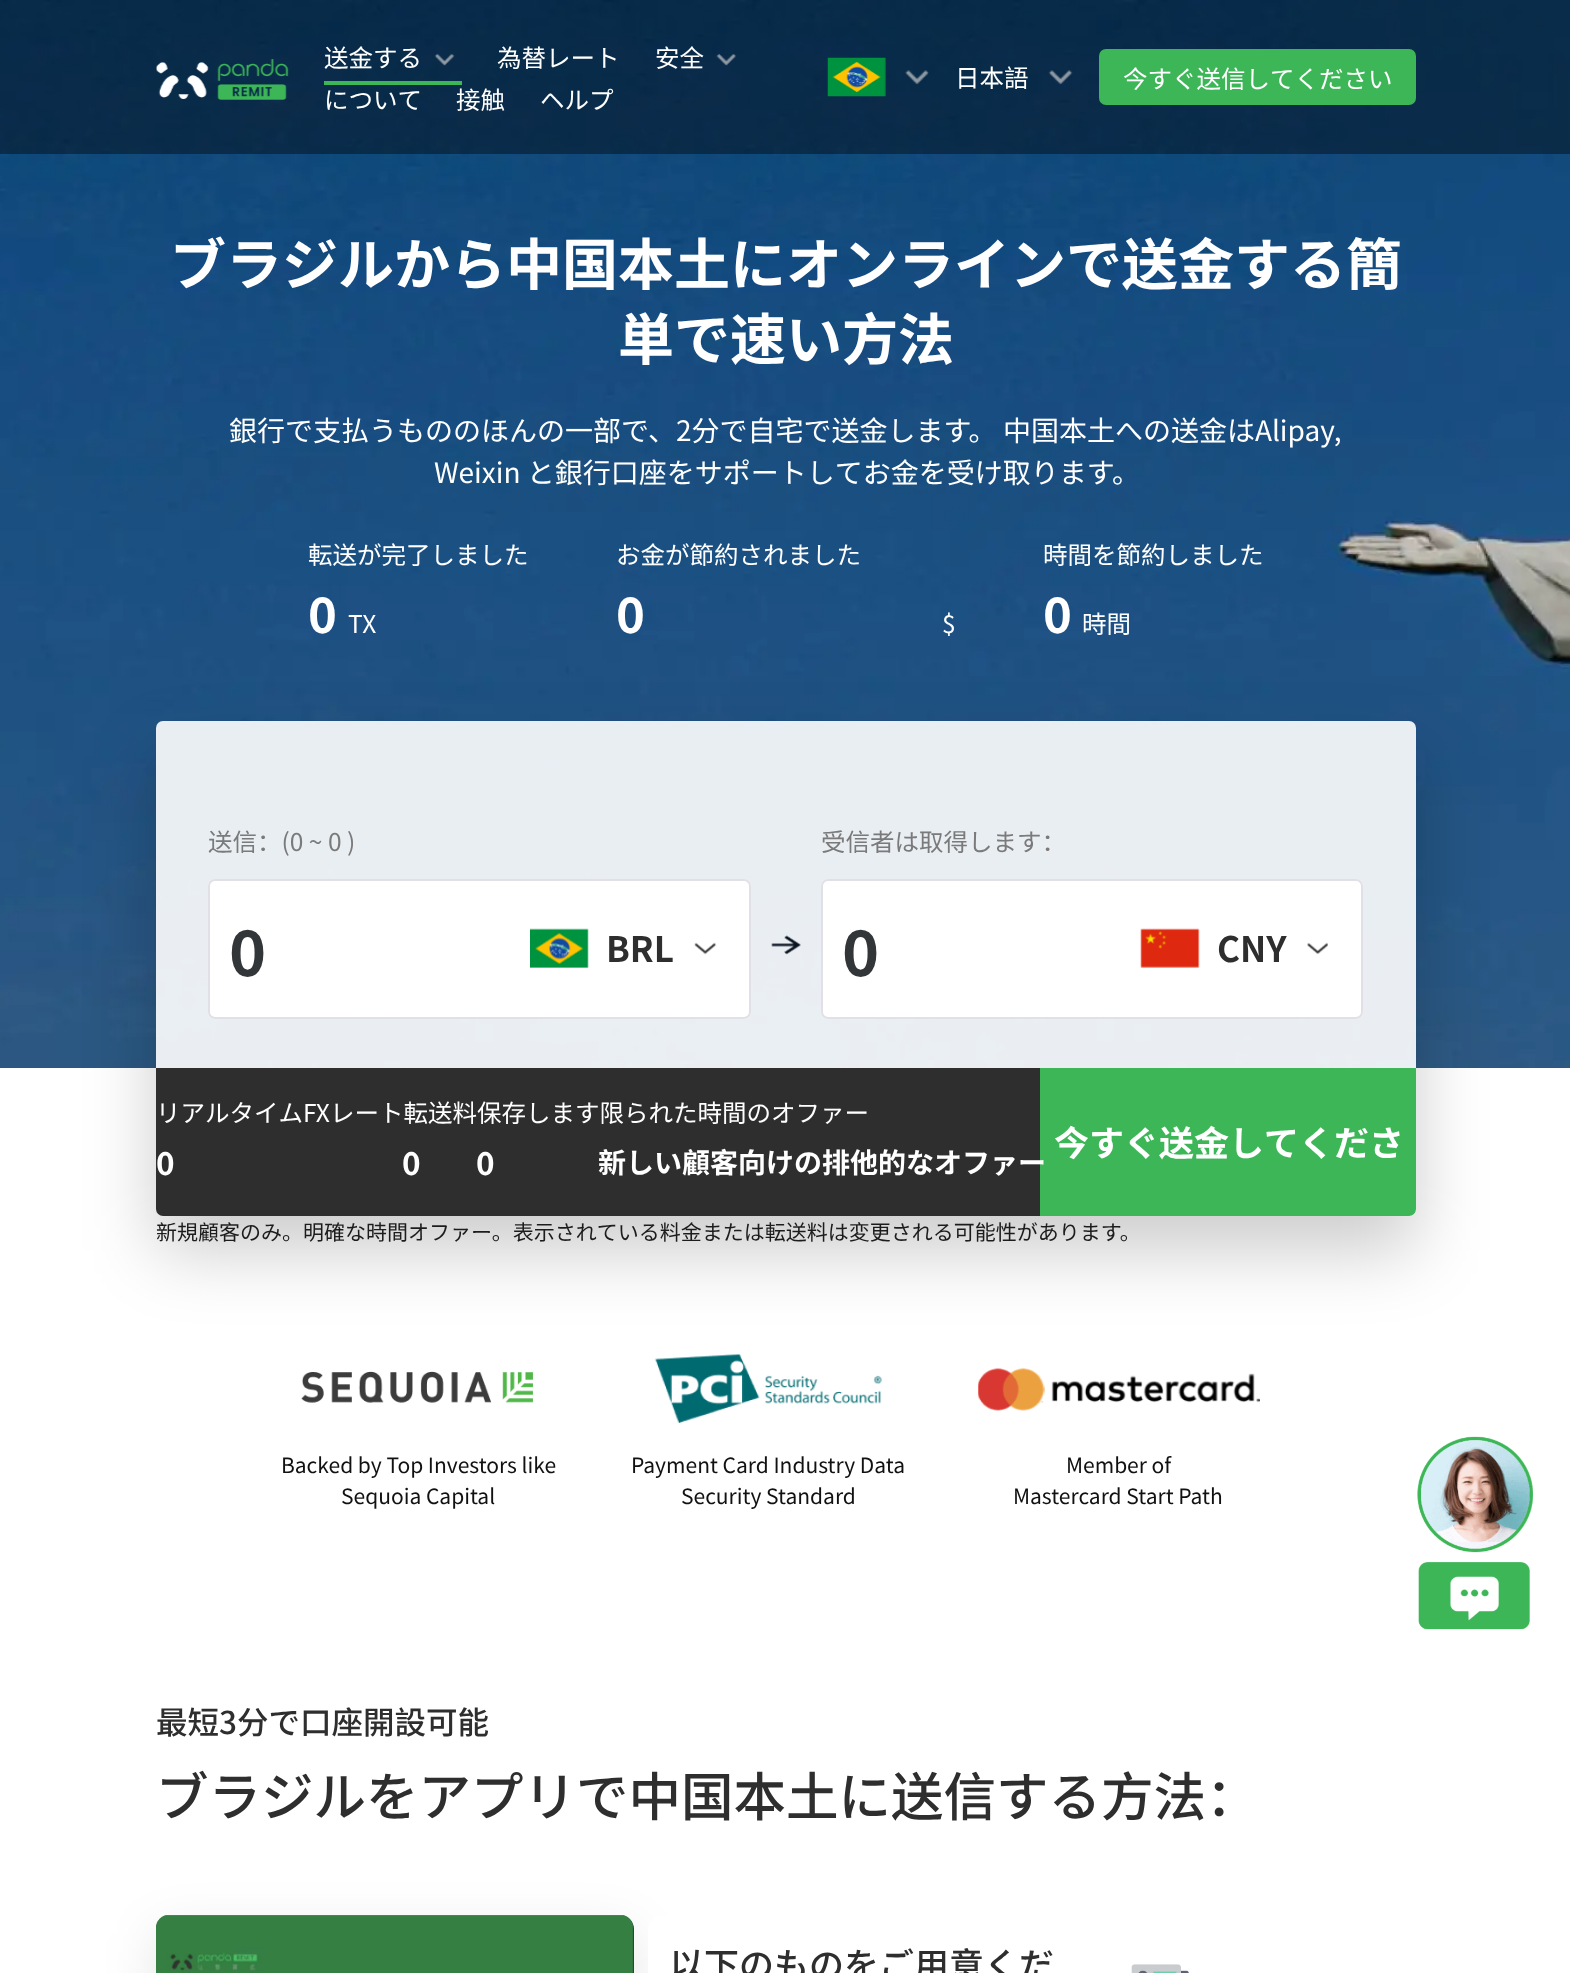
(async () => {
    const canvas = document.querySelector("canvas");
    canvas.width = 1570;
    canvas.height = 1973;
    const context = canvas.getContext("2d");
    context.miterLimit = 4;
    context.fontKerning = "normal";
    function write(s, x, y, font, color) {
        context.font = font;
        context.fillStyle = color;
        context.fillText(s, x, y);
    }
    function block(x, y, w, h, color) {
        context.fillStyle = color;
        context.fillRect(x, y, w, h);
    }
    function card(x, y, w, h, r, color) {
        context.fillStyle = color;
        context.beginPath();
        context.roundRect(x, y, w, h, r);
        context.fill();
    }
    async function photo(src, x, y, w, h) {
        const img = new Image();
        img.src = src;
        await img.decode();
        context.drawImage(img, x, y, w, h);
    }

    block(0, 0, 1570, 1973, "rgb(255, 255, 255)");
    await photo("media/1.png", 0, 0, 1570, 1068);
    block(0, 0, 1570, 154, "rgba(0, 0, 0, 0.4)");
    await photo("media/2.png", 156, 59, 133, 41);
    write("送金する", 324, 67, "24.5px Noto Sans CJK SC", "rgb(255, 255, 255)");
    await photo("media/3.png", 434, 54, 21, 12);
    block(324, 81, 138, 4, "rgb(61, 182, 87)");
    write("為替レート", 497, 67, "24.5px Noto Sans CJK SC", "rgb(255, 255, 255)");
    write("安全", 655, 67, "24.5px Noto Sans CJK SC", "rgb(255, 255, 255)");
    await photo("media/4.png", 716, 54, 21, 12);
    write("について", 324, 109, "24.5px Noto Sans CJK SC", "rgb(255, 255, 255)");
    write("接触", 456, 109, "24.5px Noto Sans CJK SC", "rgb(255, 255, 255)");
    write("ヘルプ", 540, 109, "24.5px Noto Sans CJK SC", "rgb(255, 255, 255)");
    await photo("media/5.png", 827, 57, 59, 40);
    await photo("media/6.png", 905, 70, 24, 15);
    write("日本語", 955, 87, "24.5px Noto Sans CJK SC", "rgb(255, 255, 255)");
    await photo("media/7.png", 1048, 70, 25, 15);
    card(1099, 49, 317, 56, 7, "rgb(61, 182, 87)");
    write("今すぐ送信してください", 1123, 88, "24.5px Noto Sans CJK SC", "rgb(255, 255, 255)");
    write("ブラジルから中国本土にオンラインで送金する簡", 170, 285, "bold 56px Noto Sans CJK SC", "rgb(255, 255, 255)");
    write("単で速い方法", 618, 360, "bold 56px Noto Sans CJK SC", "rgb(255, 255, 255)");
    write("銀行で支払うもののほんの一部で、2分で自宅で送金します。 中国本土への送金はAlipay,", 229, 441, "28px Noto Sans CJK SC", "rgb(255, 255, 255)");
    write("Weixin と銀行口座をサポートしてお金を受け取ります。", 434, 483, "28px Noto Sans CJK SC", "rgb(255, 255, 255)");
    write("転送が完了しました", 308, 564, "24.5px Noto Sans CJK SC", "rgb(255, 255, 255)");
    write("0", 308, 633, "bold 49px Noto Sans CJK SC", "rgb(255, 255, 255)");
    write("TX", 348, 633, "24.5px Noto Sans CJK SC", "rgb(255, 255, 255)");
    write("お金が節約されました", 616, 564, "24.5px Noto Sans CJK SC", "rgb(255, 255, 255)");
    write("0", 616, 633, "bold 49px Noto Sans CJK SC", "rgb(255, 255, 255)");
    write("$", 942, 633, "24.5px Noto Sans CJK SC", "rgb(255, 255, 255)");
    write("時間を節約しました", 1043, 564, "24.5px Noto Sans CJK SC", "rgb(255, 255, 255)");
    write("0", 1043, 633, "bold 49px Noto Sans CJK SC", "rgb(255, 255, 255)");
    write("時間", 1082, 633, "24.5px Noto Sans CJK SC", "rgb(255, 255, 255)");
    context.save();
    context.beginPath();
    context.moveTo(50, 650);
    context.lineTo(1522, 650);
    context.lineTo(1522, 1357);
    context.lineTo(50, 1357);
    context.closePath();
    context.moveTo(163, 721);
    context.lineTo(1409, 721);
    context.bezierCurveTo(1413, 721, 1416, 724, 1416, 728);
    context.lineTo(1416, 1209);
    context.bezierCurveTo(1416, 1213, 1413, 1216, 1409, 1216);
    context.lineTo(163, 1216);
    context.bezierCurveTo(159, 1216, 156, 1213, 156, 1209);
    context.lineTo(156, 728);
    context.bezierCurveTo(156, 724, 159, 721, 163, 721);
    context.closePath();
    context.clip("evenodd");
    context.fillStyle = "rgba(0, 0, 0, 0.2)";
    context.filter = "blur(35px)";
    context.beginPath();
    context.roundRect(156, 756, 1260, 495, 7);
    context.fill();
    context.filter = "none";
    context.restore();
    card(156, 721, 1260, 495, 7, "rgba(255, 255, 255, 0.9)");
    write("送信：(0 ~ 0 )", 208, 851, "24.5px Noto Sans CJK SC", "rgb(122, 122, 122)");
    card(208, 879, 543, 140, 7, "rgb(255, 255, 255)");
    await photo("media/8.png", 530, 928, 59, 40);
    await photo("media/9.png", 694, 942, 23, 13);
    context.beginPath();
    context.roundRect(209, 880, 541, 138, 6);
    context.strokeStyle = "rgb(224, 224, 230)";
    context.lineWidth = 2;
    context.stroke();
    write("0", 229, 976, "bold 63px Noto Sans CJK SC", "rgb(51, 54, 57)");
    write("BRL", 606, 962, "bold 35px Noto Sans CJK SC", "rgb(46, 46, 46)");
    await photo("media/10.png", 771, 935, 30, 20);
    write("受信者は取得します：", 821, 851, "24.5px Noto Sans CJK SC", "rgb(122, 122, 122)");
    card(821, 879, 542, 140, 7, "rgb(255, 255, 255)");
    await photo("media/11.png", 1140, 928, 60, 40);
    await photo("media/12.png", 1307, 942, 21, 13);
    context.beginPath();
    context.roundRect(822, 880, 540, 138, 6);
    context.stroke();
    write("0", 842, 976, "bold 63px Noto Sans CJK SC", "rgb(51, 54, 57)");
    write("CNY", 1217, 962, "bold 35px Noto Sans CJK SC", "rgb(46, 46, 46)");
    context.beginPath();
    context.roundRect(156, 1068, 884, 148, [0, 0, 0, 7]);
    context.fill();
    write("リアルタイムFXレート転送料保存します限られた時間のオファー", 156, 1122, "24.5px Noto Sans CJK SC", "rgb(255, 255, 255)");
    write("0", 156, 1175, "bold 31.5px Noto Sans CJK SC", "rgb(255, 255, 255)");
    write("0", 402, 1175, "bold 31.5px Noto Sans CJK SC", "rgb(255, 255, 255)");
    write("0", 476, 1175, "bold 31.5px Noto Sans CJK SC", "rgb(255, 255, 255)");
    context.fillStyle = "rgb(61, 182, 87)";
    context.beginPath();
    context.roundRect(1040, 1068, 376, 148, [0, 0, 7, 0]);
    context.fill();
    write("新しい顧客向けの排他的なオファー", 598, 1173, "bold 28px Noto Sans CJK SC", "rgb(255, 255, 255)");
    write("今すぐ送金してくださ", 1054, 1156, "bold 35px Noto Sans CJK SC", "rgb(255, 255, 255)");
    write("新規顧客のみ。明確な時間オファー。表示されている料金または転送料は変更される可能性があります。", 156, 1240, "21px Noto Sans CJK SC", "rgb(29, 28, 28)");
    await photo("media/13.png", 301, 1371, 232, 32);
    write("Backed by Top Investors like", 281, 1473, "21px Noto Sans CJK SC", "rgb(17, 17, 17)");
    write("Sequoia Capital", 341, 1504, "21px Noto Sans CJK SC", "rgb(17, 17, 17)");
    await photo("media/14.png", 654, 1354, 228, 69);
    write("Payment Card Industry Data", 631, 1473, "21px Noto Sans CJK SC", "rgb(17, 17, 17)");
    write("Security Standard", 681, 1504, "21px Noto Sans CJK SC", "rgb(17, 17, 17)");
    await photo("media/15.png", 978, 1368, 282, 43);
    write("Member of", 1066, 1473, "21px Noto Sans CJK SC", "rgb(17, 17, 17)");
    write("Mastercard Start Path", 1013, 1504, "21px Noto Sans CJK SC", "rgb(17, 17, 17)");
    await photo("media/16.png", 1417, 1436, 116, 194);
    write("最短3分で口座開設可能", 156, 1734, "500 31.5px Noto Sans CJK SC", "rgb(46, 46, 46)");
    write("ブラジルをアプリで中国本土に送信する方法：", 156, 1816, "500 52.5px Noto Sans CJK SC", "rgb(46, 46, 46)");
    context.fillStyle = "rgba(0, 0, 0, 0.1)";
    context.filter = "blur(26px)";
    context.beginPath();
    context.roundRect(156, 1932, 478, 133, 14);
    context.fill();
    context.filter = "none";
    context.fillStyle = "rgb(47, 47, 47)";
    context.beginPath();
    context.moveTo(170, 1915);
    context.lineTo(620, 1915);
    context.bezierCurveTo(627.5, 1915, 634, 1921.5, 634, 1929);
    context.lineTo(634, 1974);
    context.lineTo(156, 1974);
    context.lineTo(156, 1929);
    context.bezierCurveTo(156, 1921.5, 162.5, 1915, 170, 1915);
    context.closePath();
    context.fill();
    await photo("media/17.png", 156, 1915, 478, 58);
    context.fillStyle = "rgb(255, 255, 255)";
    context.beginPath();
    context.moveTo(662, 1915);
    context.lineTo(1075, 1915);
    context.bezierCurveTo(1082.5, 1915, 1089, 1921.5, 1089, 1929);
    context.lineTo(1089, 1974);
    context.lineTo(648, 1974);
    context.lineTo(648, 1929);
    context.bezierCurveTo(648, 1921.5, 654.5, 1915, 662, 1915);
    context.closePath();
    context.fill();
    write("以下のものをご用意くだ", 669, 1978, "500 35px Noto Sans CJK SC", "rgb(46, 46, 46)");
    await photo("media/18.png", 1131, 1964, 58, 9);
})();
